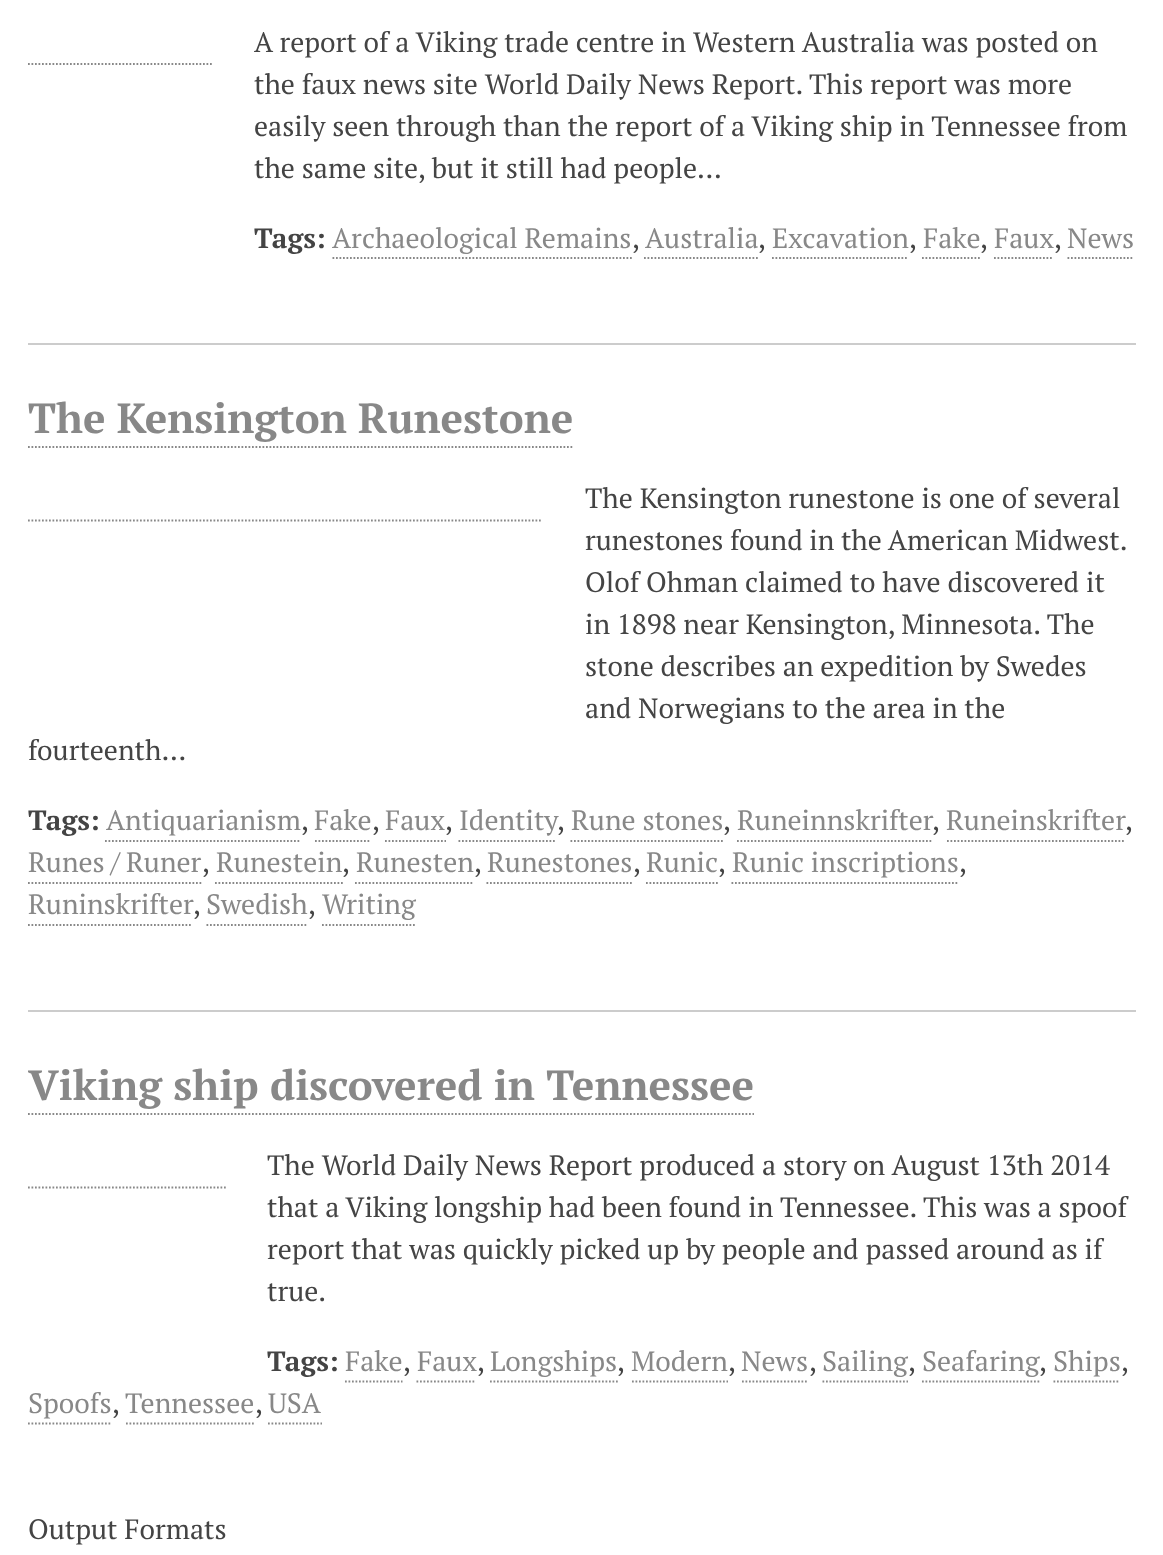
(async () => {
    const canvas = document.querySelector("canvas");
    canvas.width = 1163;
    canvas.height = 1555;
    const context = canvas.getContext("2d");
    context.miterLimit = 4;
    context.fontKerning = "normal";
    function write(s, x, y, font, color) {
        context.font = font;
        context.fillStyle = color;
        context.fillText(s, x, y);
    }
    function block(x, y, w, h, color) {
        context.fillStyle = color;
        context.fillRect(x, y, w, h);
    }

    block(0, 0, 1163, 1555, "rgb(255, 255, 255)");
    context.beginPath();
    context.moveTo(28, 64);
    context.lineTo(212, 64);
    context.strokeStyle = "rgb(136, 136, 136)";
    context.lineWidth = 1.8;
    context.setLineDash([1.75, 1.75]);
    context.stroke();
    write("A report of a Viking trade centre in Western Australia was posted on", 254, 52, "28px PT Serif", "rgb(68, 68, 68)");
    write("the faux news site World Daily News Report. This report was more", 254, 94, "28px PT Serif", "rgb(68, 68, 68)");
    write("easily seen through than the report of a Viking ship in Tennessee from", 254, 136, "28px PT Serif", "rgb(68, 68, 68)");
    write("the same site, but it still had people…", 254, 178, "28px PT Serif", "rgb(68, 68, 68)");
    write("Tags:", 254, 248, "bold 28px PT Serif", "rgb(68, 68, 68)");
    write("Archaeological Remains", 332, 248, "28px PT Serif", "rgb(136, 136, 136)");
    context.beginPath();
    context.moveTo(332.5, 258);
    context.lineTo(632, 258);
    context.stroke();
    write(",", 632, 248, "28px PT Serif", "rgb(68, 68, 68)");
    write("Australia", 645, 248, "28px PT Serif", "rgb(136, 136, 136)");
    context.beginPath();
    context.moveTo(644, 258);
    context.lineTo(758, 258);
    context.stroke();
    write(",", 758, 248, "28px PT Serif", "rgb(68, 68, 68)");
    write("Excavation", 772, 248, "28px PT Serif", "rgb(136, 136, 136)");
    context.beginPath();
    context.moveTo(772, 258);
    context.lineTo(908, 258);
    context.stroke();
    write(",", 909, 248, "28px PT Serif", "rgb(68, 68, 68)");
    write("Fake", 923, 248, "28px PT Serif", "rgb(136, 136, 136)");
    context.beginPath();
    context.moveTo(922, 258);
    context.lineTo(980, 258);
    context.stroke();
    write(",", 980, 248, "28px PT Serif", "rgb(68, 68, 68)");
    write("Faux", 994, 248, "28px PT Serif", "rgb(136, 136, 136)");
    context.beginPath();
    context.moveTo(994, 258);
    context.lineTo(1053.5, 258);
    context.stroke();
    write(",", 1054, 248, "28px PT Serif", "rgb(68, 68, 68)");
    write("News", 1067, 248, "28px PT Serif", "rgb(136, 136, 136)");
    context.beginPath();
    context.moveTo(1067.5, 258);
    context.lineTo(1134, 258);
    context.stroke();
    block(28, 343, 1108, 2, "rgb(204, 204, 204)");
    write("The Kensington Runestone", 28, 433, "bold 42px PT Serif", "rgb(136, 136, 136)");
    context.beginPath();
    context.moveTo(28, 447);
    context.lineTo(574, 447);
    context.stroke();
    write("The Kensington runestone is one of several", 585, 508, "28px PT Serif", "rgb(68, 68, 68)");
    context.wordSpacing = "-0.25px";
    write("runestones found in the American Midwest.", 585, 550, "28px PT Serif", "rgb(68, 68, 68)");
    context.wordSpacing = "0px";
    write("Olof Ohman claimed to have discovered it", 585, 592, "28px PT Serif", "rgb(68, 68, 68)");
    write("in 1898 near Kensington, Minnesota. The", 585, 634, "28px PT Serif", "rgb(68, 68, 68)");
    write("stone describes an expedition by Swedes", 585, 676, "28px PT Serif", "rgb(68, 68, 68)");
    write("and Norwegians to the area in the", 585, 718, "28px PT Serif", "rgb(68, 68, 68)");
    write("fourteenth…", 28, 760, "28px PT Serif", "rgb(68, 68, 68)");
    context.beginPath();
    context.moveTo(28, 520.5);
    context.lineTo(542.5, 520.5);
    context.stroke();
    write("Tags:", 28, 830, "bold 28px PT Serif", "rgb(68, 68, 68)");
    write("Antiquarianism", 106, 830, "28px PT Serif", "rgb(136, 136, 136)");
    context.beginPath();
    context.moveTo(105, 841);
    context.lineTo(301, 841);
    context.stroke();
    write(",", 301, 830, "28px PT Serif", "rgb(68, 68, 68)");
    write("Fake", 314, 830, "28px PT Serif", "rgb(136, 136, 136)");
    context.beginPath();
    context.moveTo(315, 841);
    context.lineTo(371, 841);
    context.stroke();
    write(",", 372, 830, "28px PT Serif", "rgb(68, 68, 68)");
    write("Faux", 385, 830, "28px PT Serif", "rgb(136, 136, 136)");
    context.beginPath();
    context.moveTo(385, 841);
    context.lineTo(446, 841);
    context.stroke();
    write(",", 445, 830, "28px PT Serif", "rgb(68, 68, 68)");
    write("Identity", 459, 830, "28px PT Serif", "rgb(136, 136, 136)");
    context.beginPath();
    context.moveTo(458.5, 841);
    context.lineTo(556.5, 841);
    context.stroke();
    write(",", 557, 830, "28px PT Serif", "rgb(68, 68, 68)");
    write("Rune stones", 571, 830, "28px PT Serif", "rgb(136, 136, 136)");
    context.beginPath();
    context.moveTo(570.5, 841);
    context.lineTo(723, 841);
    context.stroke();
    write(",", 723, 830, "28px PT Serif", "rgb(68, 68, 68)");
    write("Runeinnskrifter", 737, 830, "28px PT Serif", "rgb(136, 136, 136)");
    context.beginPath();
    context.moveTo(737, 841);
    context.lineTo(933, 841);
    context.stroke();
    write(",", 932, 830, "28px PT Serif", "rgb(68, 68, 68)");
    write("Runeinskrifter", 946, 830, "28px PT Serif", "rgb(136, 136, 136)");
    context.beginPath();
    context.moveTo(947, 841);
    context.lineTo(1125, 841);
    context.stroke();
    write(",", 1125, 830, "28px PT Serif", "rgb(68, 68, 68)");
    context.wordSpacing = "-1px";
    write("Runes / Runer", 28, 872, "28px PT Serif", "rgb(136, 136, 136)");
    context.beginPath();
    context.moveTo(28, 883);
    context.lineTo(203, 883);
    context.stroke();
    context.wordSpacing = "0px";
    write(",", 202, 872, "28px PT Serif", "rgb(68, 68, 68)");
    write("Runestein", 216, 872, "28px PT Serif", "rgb(136, 136, 136)");
    context.beginPath();
    context.moveTo(215, 883);
    context.lineTo(343, 883);
    context.stroke();
    write(",", 342, 872, "28px PT Serif", "rgb(68, 68, 68)");
    write("Runesten", 356, 872, "28px PT Serif", "rgb(136, 136, 136)");
    context.beginPath();
    context.moveTo(355, 883);
    context.lineTo(474, 883);
    context.stroke();
    write(",", 474, 872, "28px PT Serif", "rgb(68, 68, 68)");
    write("Runestones", 487, 872, "28px PT Serif", "rgb(136, 136, 136)");
    context.beginPath();
    context.moveTo(486.5, 883);
    context.lineTo(633.5, 883);
    context.stroke();
    write(",", 633, 872, "28px PT Serif", "rgb(68, 68, 68)");
    write("Runic", 646, 872, "28px PT Serif", "rgb(136, 136, 136)");
    context.beginPath();
    context.moveTo(646, 883);
    context.lineTo(719, 883);
    context.stroke();
    write(",", 718, 872, "28px PT Serif", "rgb(68, 68, 68)");
    write("Runic inscriptions", 732, 872, "28px PT Serif", "rgb(136, 136, 136)");
    context.beginPath();
    context.moveTo(731.5, 883);
    context.lineTo(959, 883);
    context.stroke();
    write(",", 959, 872, "28px PT Serif", "rgb(68, 68, 68)");
    write("Runinskrifter", 28, 914, "28px PT Serif", "rgb(136, 136, 136)");
    context.beginPath();
    context.moveTo(28, 925);
    context.lineTo(192.5, 925);
    context.stroke();
    write(",", 193, 914, "28px PT Serif", "rgb(68, 68, 68)");
    write("Swedish", 206, 914, "28px PT Serif", "rgb(136, 136, 136)");
    context.beginPath();
    context.moveTo(206.5, 925);
    context.lineTo(308, 925);
    context.stroke();
    write(",", 308, 914, "28px PT Serif", "rgb(68, 68, 68)");
    write("Writing", 322, 914, "28px PT Serif", "rgb(136, 136, 136)");
    context.beginPath();
    context.moveTo(322, 925);
    context.lineTo(415, 925);
    context.stroke();
    block(28, 1010, 1108, 2, "rgb(204, 204, 204)");
    write("Viking ship discovered in Tennessee", 28, 1100, "bold 42px PT Serif", "rgb(136, 136, 136)");
    context.beginPath();
    context.moveTo(28, 1114);
    context.lineTo(754, 1114);
    context.stroke();
    context.beginPath();
    context.moveTo(28, 1187.5);
    context.lineTo(226, 1187.5);
    context.stroke();
    write("The World Daily News Report produced a story on August 13th 2014", 267, 1175, "28px PT Serif", "rgb(68, 68, 68)");
    write("that a Viking longship had been found in Tennessee. This was a spoof", 267, 1217, "28px PT Serif", "rgb(68, 68, 68)");
    write("report that was quickly picked up by people and passed around as if", 267, 1259, "28px PT Serif", "rgb(68, 68, 68)");
    write("true.", 267, 1301, "28px PT Serif", "rgb(68, 68, 68)");
    write("Tags:", 267, 1371, "bold 28px PT Serif", "rgb(68, 68, 68)");
    write("Fake", 345, 1371, "28px PT Serif", "rgb(136, 136, 136)");
    context.beginPath();
    context.moveTo(345, 1381.5);
    context.lineTo(402.5, 1381.5);
    context.stroke();
    write(",", 403, 1371, "28px PT Serif", "rgb(68, 68, 68)");
    write("Faux", 417, 1371, "28px PT Serif", "rgb(136, 136, 136)");
    context.beginPath();
    context.moveTo(416.5, 1381.5);
    context.lineTo(476, 1381.5);
    context.stroke();
    write(",", 477, 1371, "28px PT Serif", "rgb(68, 68, 68)");
    write("Longships", 490, 1371, "28px PT Serif", "rgb(136, 136, 136)");
    context.beginPath();
    context.moveTo(490, 1381.5);
    context.lineTo(618, 1381.5);
    context.stroke();
    write(",", 617, 1371, "28px PT Serif", "rgb(68, 68, 68)");
    write("Modern", 631, 1371, "28px PT Serif", "rgb(136, 136, 136)");
    context.beginPath();
    context.moveTo(632, 1381.5);
    context.lineTo(728, 1381.5);
    context.stroke();
    write(",", 728, 1371, "28px PT Serif", "rgb(68, 68, 68)");
    write("News", 741, 1371, "28px PT Serif", "rgb(136, 136, 136)");
    context.beginPath();
    context.moveTo(742, 1381.5);
    context.lineTo(808.5, 1381.5);
    context.stroke();
    write(",", 809, 1371, "28px PT Serif", "rgb(68, 68, 68)");
    write("Sailing", 822, 1371, "28px PT Serif", "rgb(136, 136, 136)");
    context.beginPath();
    context.moveTo(822.5, 1381.5);
    context.lineTo(908, 1381.5);
    context.stroke();
    write(",", 908, 1371, "28px PT Serif", "rgb(68, 68, 68)");
    write("Seafaring", 922, 1371, "28px PT Serif", "rgb(136, 136, 136)");
    context.beginPath();
    context.moveTo(922, 1381.5);
    context.lineTo(1039.5, 1381.5);
    context.stroke();
    write(",", 1039, 1371, "28px PT Serif", "rgb(68, 68, 68)");
    write("Ships", 1053, 1371, "28px PT Serif", "rgb(136, 136, 136)");
    context.beginPath();
    context.moveTo(1053.5, 1381.5);
    context.lineTo(1120, 1381.5);
    context.stroke();
    write(",", 1121, 1371, "28px PT Serif", "rgb(68, 68, 68)");
    write("Spoofs", 28, 1413, "28px PT Serif", "rgb(136, 136, 136)");
    context.beginPath();
    context.moveTo(28, 1423.5);
    context.lineTo(112, 1423.5);
    context.stroke();
    write(",", 112, 1413, "28px PT Serif", "rgb(68, 68, 68)");
    write("Tennessee", 125, 1413, "28px PT Serif", "rgb(136, 136, 136)");
    context.beginPath();
    context.moveTo(126, 1423.5);
    context.lineTo(254, 1423.5);
    context.stroke();
    write(",", 255, 1413, "28px PT Serif", "rgb(68, 68, 68)");
    write("USA", 268, 1413, "28px PT Serif", "rgb(136, 136, 136)");
    context.beginPath();
    context.moveTo(268, 1423.5);
    context.lineTo(322, 1423.5);
    context.stroke();
    write("Output Formats", 28, 1539, "28px PT Serif", "rgb(68, 68, 68)");
})();
